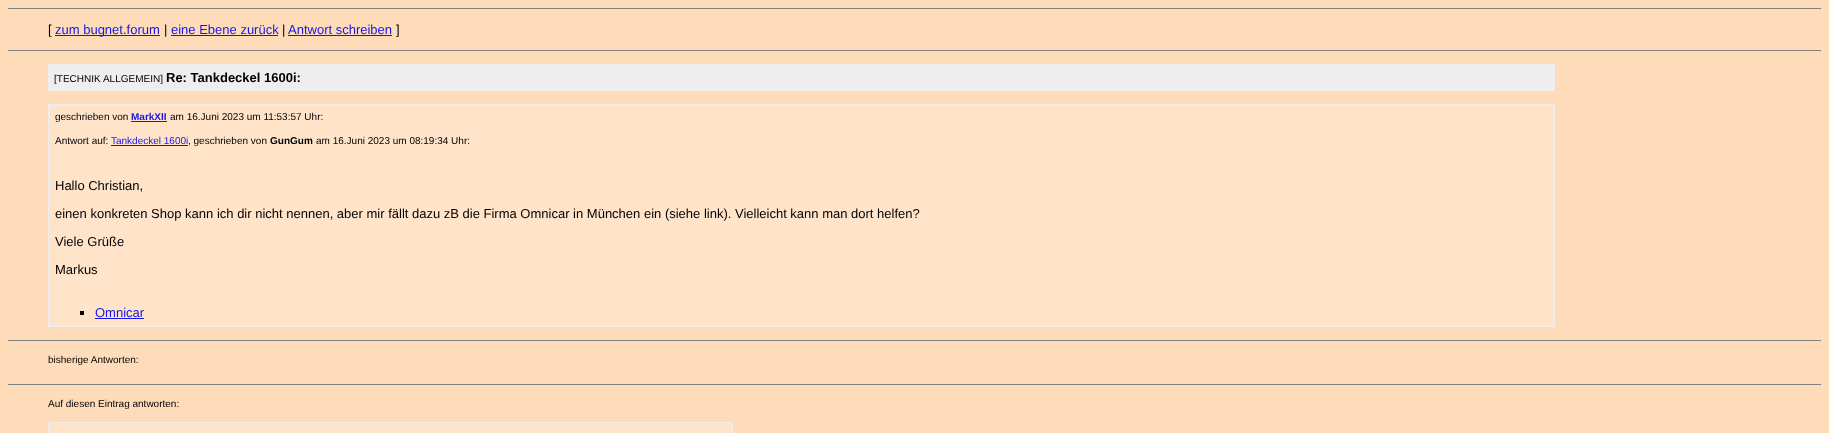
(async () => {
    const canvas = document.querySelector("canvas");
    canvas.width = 1829;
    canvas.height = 433;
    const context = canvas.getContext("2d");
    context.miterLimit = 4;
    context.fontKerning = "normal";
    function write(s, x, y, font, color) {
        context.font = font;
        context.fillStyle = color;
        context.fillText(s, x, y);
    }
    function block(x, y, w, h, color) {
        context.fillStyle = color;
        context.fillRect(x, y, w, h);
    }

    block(0, 0, 1829, 433, "rgb(255, 220, 185)");
    block(8, 8, 1813, 1, "rgb(128, 128, 128)");
    write("[", 48, 34, "13px Liberation Sans", "rgb(0, 0, 0)");
    block(55, 35, 105, 1, "rgb(23, 21, 232)");
    write("zum bugnet.forum", 55, 34, "13px Liberation Sans", "rgb(23, 21, 232)");
    write("|", 164, 34, "13px Liberation Sans", "rgb(0, 0, 0)");
    write("eine Ebene zurück", 171, 34, "13px Liberation Sans", "rgb(23, 21, 232)");
    block(171, 35, 107, 1, "rgb(23, 21, 232)");
    write("|", 282, 34, "13px Liberation Sans", "rgb(0, 0, 0)");
    write("Antwort schreiben", 288, 34, "13px Liberation Sans", "rgb(23, 21, 232)");
    block(288, 35, 104, 1, "rgb(23, 21, 232)");
    write("]", 396, 34, "13px Liberation Sans", "rgb(0, 0, 0)");
    block(8, 50, 1813, 1, "rgb(128, 128, 128)");
    block(48, 64, 1507, 27, "rgb(238, 238, 238)");
    write("[TECHNIK ALLGEMEIN]", 54, 82, "10px Liberation Sans", "rgb(0, 0, 0)");
    write("Re: Tankdeckel 1600i:", 166, 82, "bold 13px Liberation Sans", "rgb(0, 0, 0)");
    block(48, 104, 1507, 223, "rgb(238, 238, 238)");
    block(49, 105, 1505, 221, "rgb(255, 228, 202)");
    write("geschrieben von", 55, 120, "10px Liberation Sans", "rgb(0, 0, 0)");
    write("MarkXII", 131, 120, "bold 10px Liberation Sans", "rgb(23, 21, 232)");
    block(131, 121, 36, 1, "rgb(23, 21, 232)");
    write("am 16.Juni 2023 um 11:53:57 Uhr:", 170, 120, "10px Liberation Sans", "rgb(0, 0, 0)");
    write("Antwort auf:", 55, 144, "10px Liberation Sans", "rgb(0, 0, 0)");
    write("Tankdeckel 1600i", 111, 144, "10px Liberation Sans", "rgb(23, 21, 232)");
    write(", geschrieben von", 188, 144, "10px Liberation Sans", "rgb(0, 0, 0)");
    block(111, 145, 77, 1, "rgb(23, 21, 232)");
    write("GunGum", 270, 144, "bold 10px Liberation Sans", "rgb(0, 0, 0)");
    write("am 16.Juni 2023 um 08:19:34 Uhr:", 316, 144, "10px Liberation Sans", "rgb(0, 0, 0)");
    write("Hallo Christian,", 55, 190, "13px Liberation Sans", "rgb(0, 0, 0)");
    write("einen konkreten Shop kann ich dir nicht nennen, aber mir fällt dazu zB die Firma Omnicar in München ein (siehe link). Vielleicht kann man dort helfen?", 55, 218, "13px Liberation Sans", "rgb(0, 0, 0)");
    write("Viele Grüße", 55, 246, "13px Liberation Sans", "rgb(0, 0, 0)");
    write("Markus", 55, 274, "13px Liberation Sans", "rgb(0, 0, 0)");
    block(80, 311, 4, 4, "rgb(0, 0, 0)");
    write("Omnicar", 95, 317, "13px Liberation Sans", "rgb(23, 21, 232)");
    block(95, 318, 49, 1, "rgb(23, 21, 232)");
    block(8, 340, 1813, 1, "rgb(128, 128, 128)");
    write("bisherige Antworten:", 48, 363, "10px Liberation Sans", "rgb(0, 0, 0)");
    block(8, 384, 1813, 1, "rgb(128, 128, 128)");
    write("Auf diesen Eintrag antworten:", 48, 407, "10px Liberation Sans", "rgb(0, 0, 0)");
    block(48, 422, 685, 11, "rgb(238, 238, 238)");
    block(49, 423, 683, 10, "rgb(255, 228, 202)");
})();
